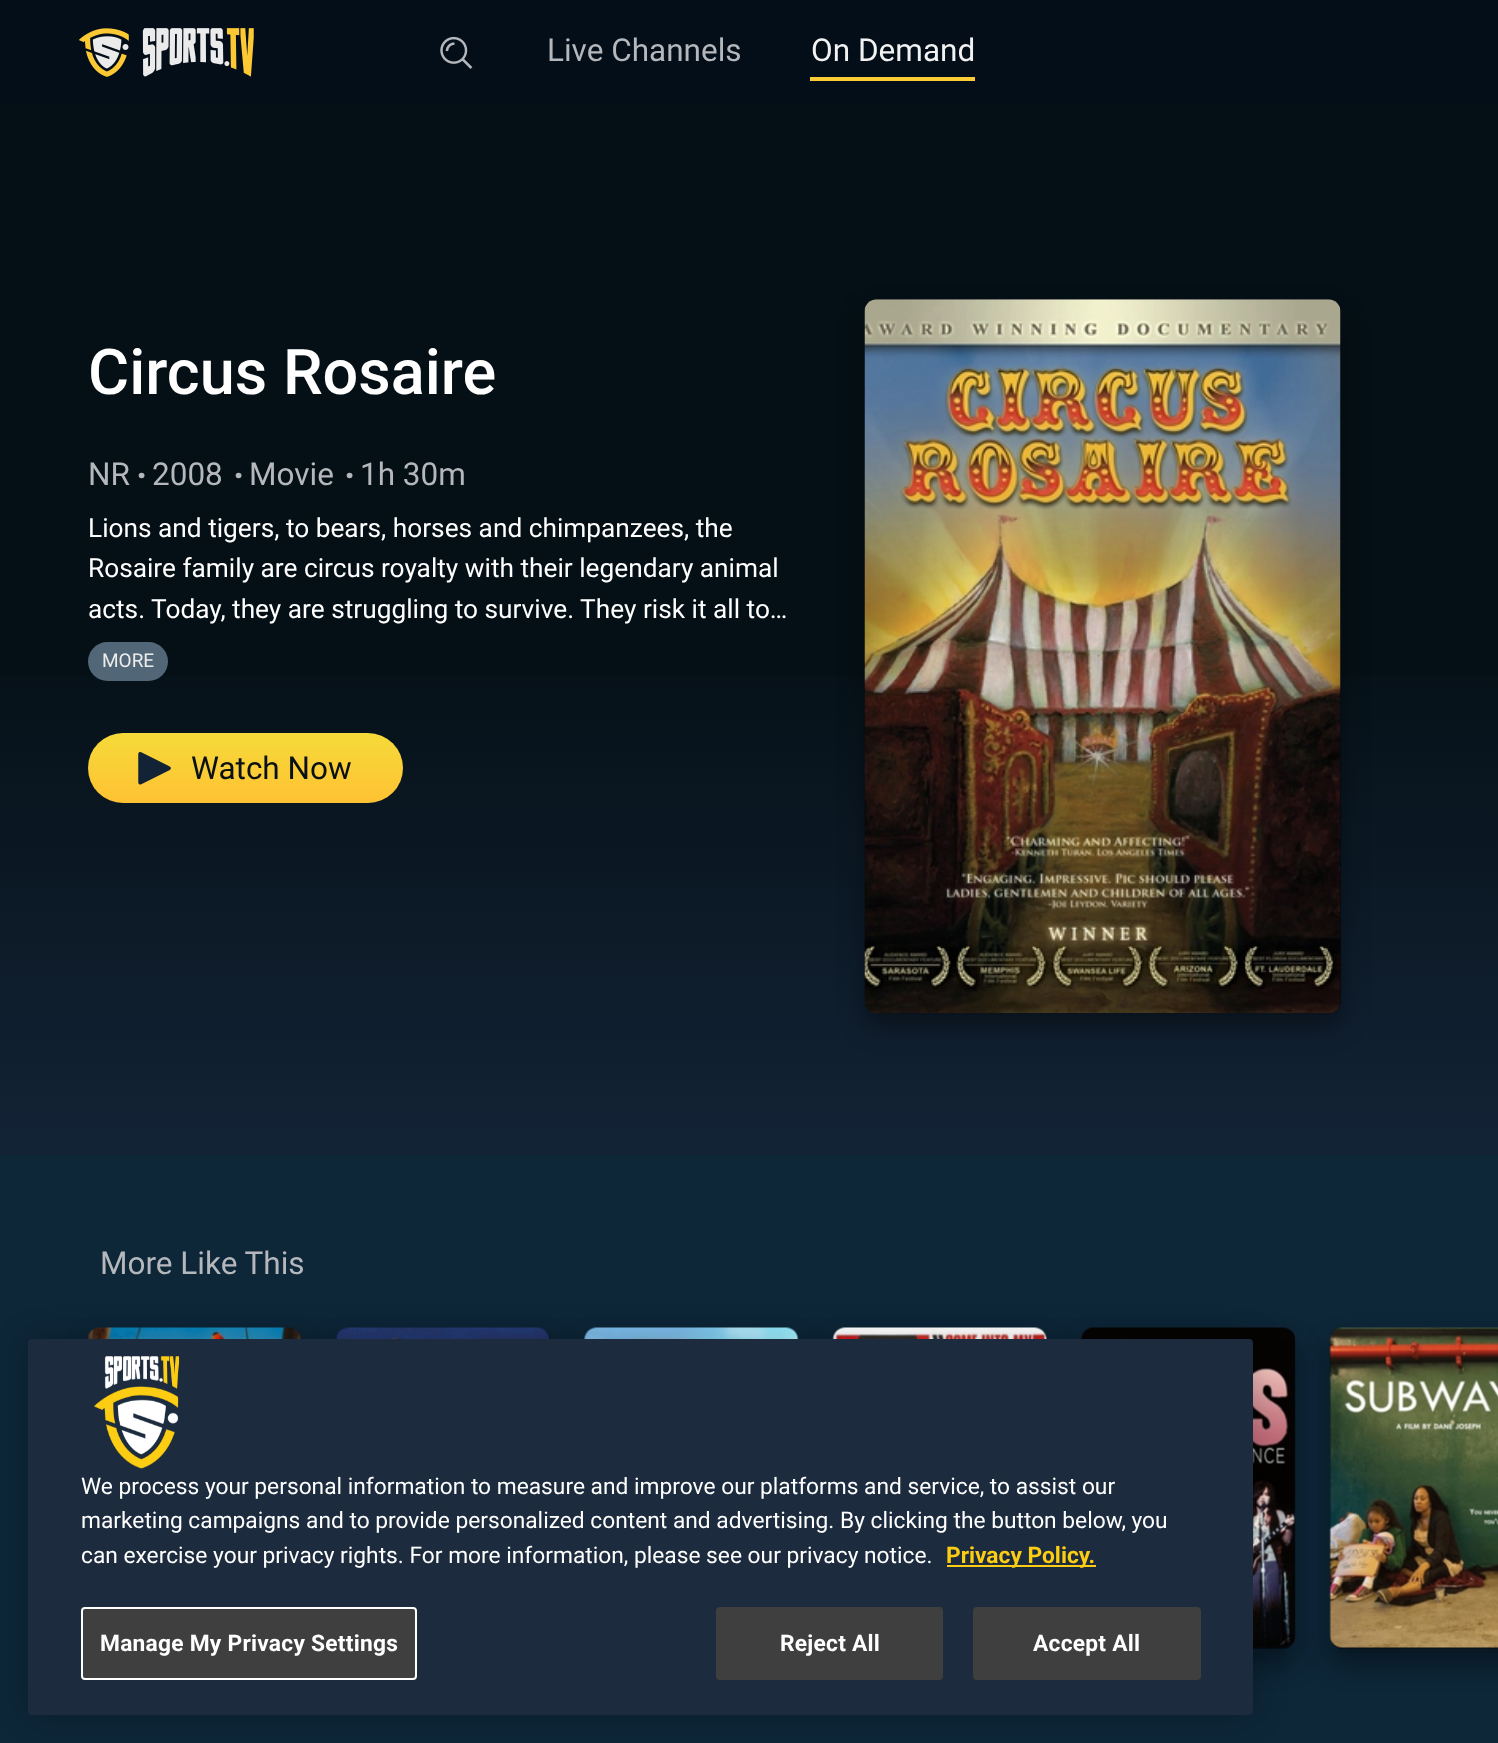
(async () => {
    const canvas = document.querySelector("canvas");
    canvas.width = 1498;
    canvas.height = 1743;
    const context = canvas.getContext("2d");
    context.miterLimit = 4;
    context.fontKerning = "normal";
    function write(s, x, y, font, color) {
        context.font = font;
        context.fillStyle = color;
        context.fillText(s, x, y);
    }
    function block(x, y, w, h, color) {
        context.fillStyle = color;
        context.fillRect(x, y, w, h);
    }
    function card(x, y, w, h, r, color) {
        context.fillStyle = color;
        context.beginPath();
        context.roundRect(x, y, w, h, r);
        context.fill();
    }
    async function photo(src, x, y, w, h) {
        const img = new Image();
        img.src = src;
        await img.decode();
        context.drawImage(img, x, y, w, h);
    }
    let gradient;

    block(0, 0, 1498, 1743, "rgb(13, 38, 56)");
    block(0, 0, 1498, 105, "rgb(4, 14, 25)");
    await photo("media/1.png", 79, 28, 175, 49);
    await photo("media/2.png", 440, 36, 33, 33);
    write("Live Channels", 547, 61, "31.5px Roboto", "rgb(180, 183, 187)");
    write("On Demand", 811, 61, "31.5px Roboto", "rgb(242, 242, 242)");
    block(810, 77, 165, 4, "rgb(251, 204, 53)");
    block(0, 105, 1498, 1049, "rgb(5, 16, 22)");
    gradient = context.createLinearGradient(749, 632, 749, 1157);
    gradient.addColorStop(0, "rgba(19, 35, 54, 0)");
    gradient.addColorStop(1, "rgb(19, 35, 54)");
    context.fillStyle = gradient;
    context.fillRect(0, 676, 1498, 479);
    write("Circus Rosaire", 88, 394, "500 63px Roboto", "rgb(255, 255, 255)");
    write("NR", 88, 485, "31.5px Roboto", "rgb(180, 183, 187)");
    write(".", 135, 478, "52px Roboto", "rgb(180, 183, 187)");
    write("2008", 152, 485, "31.5px Roboto", "rgb(180, 183, 187)");
    write(".", 232, 478, "52px Roboto", "rgb(180, 183, 187)");
    write("Movie", 249, 485, "31.5px Roboto", "rgb(180, 183, 187)");
    write(".", 343, 478, "52px Roboto", "rgb(180, 183, 187)");
    write("1h 30m", 360, 485, "31.5px Roboto", "rgb(180, 183, 187)");
    write("Lions and tigers, to bears, horses and chimpanzees, the", 88, 537, "26.25px Roboto", "rgb(255, 255, 255)");
    write("Rosaire family are circus royalty with their legendary animal", 88, 577, "26.25px Roboto", "rgb(255, 255, 255)");
    write("acts. Today, they are struggling to survive. They risk it all to…", 88, 618, "26.25px Roboto", "rgb(255, 255, 255)");
    card(88, 642, 80, 39, 19.5, "rgb(81, 102, 118)");
    write("MORE", 102, 667, "19px Roboto", "rgb(235, 235, 235)");
    gradient = context.createLinearGradient(245, 733, 245, 803);
    gradient.addColorStop(0, "rgb(245, 218, 57)");
    gradient.addColorStop(1, "rgb(255, 194, 51)");
    context.fillStyle = gradient;
    context.beginPath();
    context.roundRect(88, 733, 315, 70, 35);
    context.fill();
    await photo("media/3.png", 138, 752, 33, 33);
    write("Watch Now", 191, 779, "31.5px Roboto", "rgb(10, 17, 21)");
    card(865, 299, 476, 714, 12, "rgb(4, 14, 25)");
    context.fillStyle = "rgba(0, 0, 0, 0.4)";
    context.filter = "blur(13px)";
    context.beginPath();
    context.roundRect(865, 313, 476, 714, 12);
    context.fill();
    context.filter = "none";
    await photo("media/4.png", 864, 299, 477, 714);
    write("More Like This", 100, 1274, "31.5px Roboto", "rgb(180, 183, 187)");
    context.fillStyle = "rgba(0, 0, 0, 0.4)";
    context.filter = "blur(13px)";
    context.beginPath();
    context.roundRect(88, 1342, 213, 321, 12);
    context.fill();
    context.filter = "none";
    card(88, 1328, 213, 321, 12, "rgb(4, 14, 25)");
    await photo("media/5.png", 88, 1327, 214, 12);
    context.fillStyle = "rgba(0, 0, 0, 0.4)";
    context.filter = "blur(13px)";
    context.beginPath();
    context.roundRect(336, 1342, 214, 321, 12);
    context.fill();
    context.filter = "none";
    card(336, 1328, 214, 321, 12, "rgb(4, 14, 25)");
    await photo("media/6.png", 335, 1327, 215, 12);
    context.fillStyle = "rgba(0, 0, 0, 0.4)";
    context.filter = "blur(13px)";
    context.beginPath();
    context.roundRect(585, 1342, 213, 321, 12);
    context.fill();
    context.filter = "none";
    card(585, 1328, 213, 321, 12, "rgb(4, 14, 25)");
    await photo("media/7.png", 584, 1327, 215, 12);
    context.fillStyle = "rgba(0, 0, 0, 0.4)";
    context.filter = "blur(13px)";
    context.beginPath();
    context.roundRect(833, 1342, 214, 321, 12);
    context.fill();
    context.filter = "none";
    card(833, 1328, 214, 321, 12, "rgb(4, 14, 25)");
    await photo("media/8.png", 832, 1327, 215, 12);
    context.fillStyle = "rgba(0, 0, 0, 0.4)";
    context.filter = "blur(13px)";
    context.beginPath();
    context.roundRect(1082, 1342, 213, 321, 12);
    context.fill();
    context.filter = "none";
    card(1082, 1328, 213, 321, 12, "rgb(4, 14, 25)");
    await photo("media/9.png", 1081, 1327, 215, 321);
    context.fillStyle = "rgba(0, 0, 0, 0.4)";
    context.filter = "blur(13px)";
    context.beginPath();
    context.roundRect(1330, 1342, 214, 321, 12);
    context.fill();
    context.filter = "none";
    context.fillStyle = "rgb(4, 14, 25)";
    context.beginPath();
    context.roundRect(1330, 1328, 168, 321, [12, 0, 0, 12]);
    context.fill();
    await photo("media/10.png", 1329, 1327, 169, 322);
    context.fillStyle = "rgba(0, 0, 0, 0.2)";
    context.filter = "blur(16px)";
    context.beginPath();
    context.roundRect(28, 1339, 1225, 376, 4);
    context.fill();
    context.filter = "none";
    card(28, 1339, 1225, 376, 4, "rgb(28, 44, 62)");
    await photo("media/11.png", 94, 1356, 86, 113);
    write("We process your personal information to measure and improve our platforms and service, to assist our", 81, 1494, "22.75px Roboto", "rgb(255, 255, 255)");
    write("marketing campaigns and to provide personalized content and advertising. By clicking the button below, you", 81, 1528, "22.75px Roboto", "rgb(255, 255, 255)");
    write("can exercise your privacy rights. For more information, please see our privacy notice.", 81, 1563, "22.75px Roboto", "rgb(255, 255, 255)");
    block(947, 1565, 149, 2, "rgb(252, 205, 19)");
    write("Privacy Policy.", 946, 1563, "bold 22.75px Roboto", "rgb(252, 205, 19)");
    context.fillStyle = "rgb(63, 63, 63)";
    context.beginPath();
    context.roundRect(82, 1608, 334, 71, 3);
    context.fill();
    context.strokeStyle = "rgb(255, 255, 255)";
    context.lineWidth = 2;
    context.stroke();
    context.letterSpacing = "0.25px";
    write("Manage My Privacy Settings", 100, 1651, "bold 22.75px Roboto", "rgb(255, 255, 255)");
    context.fillStyle = "rgb(63, 63, 63)";
    context.beginPath();
    context.roundRect(717, 1608, 225, 71, 3);
    context.fill();
    context.strokeStyle = "rgb(63, 63, 63)";
    context.stroke();
    write("Reject All", 780, 1651, "bold 22.75px Roboto", "rgb(255, 255, 255)");
    context.fillStyle = "rgb(63, 63, 63)";
    context.beginPath();
    context.roundRect(974, 1608, 226, 71, 3);
    context.fill();
    context.stroke();
    write("Accept All", 1033, 1651, "bold 22.75px Roboto", "rgb(255, 255, 255)");
})();
